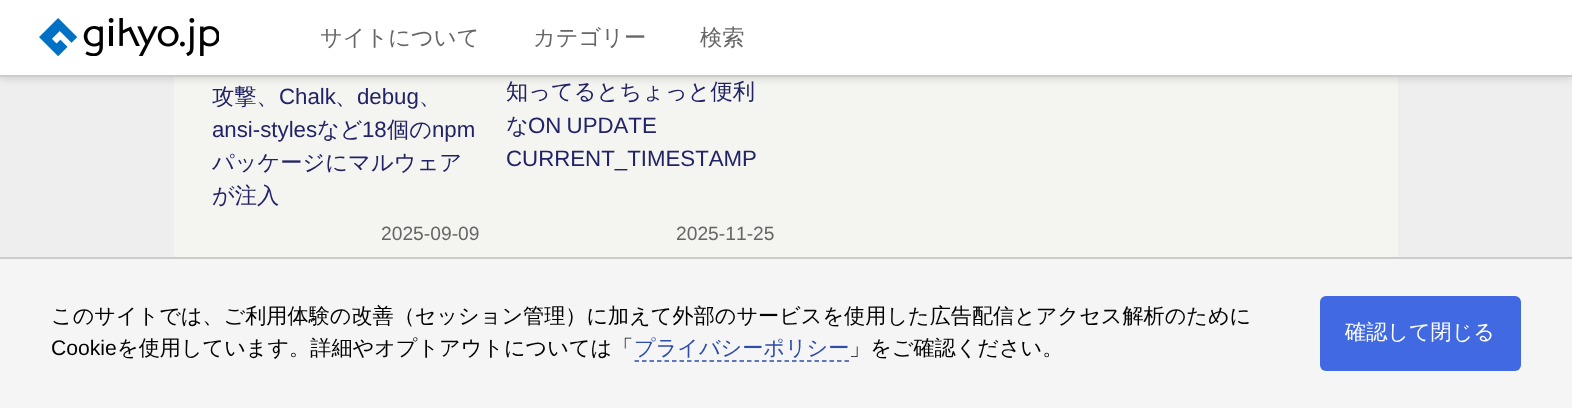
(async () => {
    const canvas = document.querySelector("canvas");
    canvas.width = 1572;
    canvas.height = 408;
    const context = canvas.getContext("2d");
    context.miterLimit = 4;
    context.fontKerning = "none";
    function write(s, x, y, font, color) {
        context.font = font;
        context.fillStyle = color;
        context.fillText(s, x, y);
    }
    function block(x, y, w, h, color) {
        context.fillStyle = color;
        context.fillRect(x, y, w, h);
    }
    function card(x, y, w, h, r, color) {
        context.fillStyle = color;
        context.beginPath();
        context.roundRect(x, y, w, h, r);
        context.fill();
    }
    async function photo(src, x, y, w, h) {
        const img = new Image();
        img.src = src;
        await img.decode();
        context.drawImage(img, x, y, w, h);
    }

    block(0, 0, 1572, 408, "rgb(238, 238, 238)");
    block(174, 77, 1224, 180, "rgb(244, 244, 240)");
    context.fillStyle = "rgba(0, 0, 0, 0.15)";
    context.filter = "blur(4px)";
    context.beginPath();
    context.rect(0, 2, 1572, 76);
    context.fill();
    context.filter = "none";
    block(0, 0, 1572, 75, "rgb(255, 255, 255)");
    block(0, 75, 1572, 2, "rgb(204, 204, 204)");
    await photo("media/1.png", 39, 18, 180, 38);
    block(294, 75, 2, 2, "rgb(255, 255, 255)");
    write("サイトについて", 320, 45, "500 22.25px WenQuanYi Zen Hei", "rgb(102, 102, 102)");
    block(294, 75, 2, 2, "rgb(204, 204, 204)");
    block(504, 75, 4, 2, "rgb(255, 255, 255)");
    write("カテゴリー", 533, 45, "500 22.25px WenQuanYi Zen Hei", "rgb(102, 102, 102)");
    block(504, 75, 4, 2, "rgb(204, 204, 204)");
    block(770, 75, 2, 2, "rgb(255, 255, 255)");
    block(672, 75, 4, 2, "rgb(255, 255, 255)");
    write("検索", 700, 45, "500 22.25px WenQuanYi Zen Hei", "rgb(102, 102, 102)");
    block(672, 75, 4, 2, "rgb(204, 204, 204)");
    block(770, 75, 2, 2, "rgb(204, 204, 204)");
    write("攻撃、", 212, 104, "500 22.25px WenQuanYi Zen Hei", "rgb(34, 34, 102)");
    write("Chalk", 279, 104, "22.25px Liberation Sans", "rgb(34, 34, 102)");
    write("、", 335, 104, "500 22.25px WenQuanYi Zen Hei", "rgb(34, 34, 102)");
    write("debug", 357, 104, "22.25px Liberation Sans", "rgb(34, 34, 102)");
    write("、", 419, 104, "500 22.25px WenQuanYi Zen Hei", "rgb(34, 34, 102)");
    write("ansi-styles", 212, 137, "22.25px Liberation Sans", "rgb(34, 34, 102)");
    write("など", 317, 137, "500 22.25px WenQuanYi Zen Hei", "rgb(34, 34, 102)");
    write("18", 362, 137, "22.25px Liberation Sans", "rgb(34, 34, 102)");
    write("個の", 387, 137, "500 22.25px WenQuanYi Zen Hei", "rgb(34, 34, 102)");
    write("npm", 432, 137, "22.25px Liberation Sans", "rgb(34, 34, 102)");
    write("パッケージにマルウェア", 212, 170, "500 22.25px WenQuanYi Zen Hei", "rgb(34, 34, 102)");
    write("が注入", 212, 203, "500 22.25px WenQuanYi Zen Hei", "rgb(34, 34, 102)");
    write("2025-09-09", 381, 240, "19.25px Liberation Sans", "rgb(102, 102, 102)");
    write("知ってるとちょっと便利", 506, 99, "500 22.25px WenQuanYi Zen Hei", "rgb(34, 34, 102)");
    write("な", 506, 133, "500 22.25px WenQuanYi Zen Hei", "rgb(34, 34, 102)");
    context.wordSpacing = "-1px";
    write("ON UPDATE", 528, 133, "22.25px Liberation Sans", "rgb(34, 34, 102)");
    context.wordSpacing = "0px";
    write("CURRENT_TIMESTAMP", 506, 166, "22.25px Liberation Sans", "rgb(34, 34, 102)");
    write("2025-11-25", 676, 240, "19.25px Liberation Sans", "rgb(102, 102, 102)");
    block(0, 259, 1572, 149, "rgb(245, 245, 245)");
    block(0, 257, 1572, 2, "rgb(204, 204, 204)");
    write("このサイトでは、ご利用体験の改善（セッション管理）に加えて外部のサービスを使用した広告配信とアクセス解析のために", 51, 323, "500 21.15px WenQuanYi Zen Hei", "rgb(0, 0, 0)");
    write("Cookie", 51, 355, "21.15px Liberation Sans", "rgb(0, 0, 0)");
    write("を使用しています。詳細やオプトアウトについては「", 117, 355, "500 21.15px WenQuanYi Zen Hei", "rgb(0, 0, 0)");
    write("プライバシーポリシー", 634, 355, "500 21.15px WenQuanYi Zen Hei", "rgb(46, 77, 169)");
    context.beginPath();
    context.moveTo(634.5, 361);
    context.lineTo(849, 361);
    context.strokeStyle = "rgb(46, 77, 169)";
    context.lineWidth = 1.5;
    context.setLineDash([4.5, 3]);
    context.stroke();
    write("」をご確認ください。", 849, 355, "500 21.15px WenQuanYi Zen Hei", "rgb(0, 0, 0)");
    card(1320, 296, 201, 75, 6, "rgb(65, 105, 225)");
    write("確認して閉じる", 1345, 339, "500 21.15px WenQuanYi Zen Hei", "rgb(255, 255, 255)");
})();
